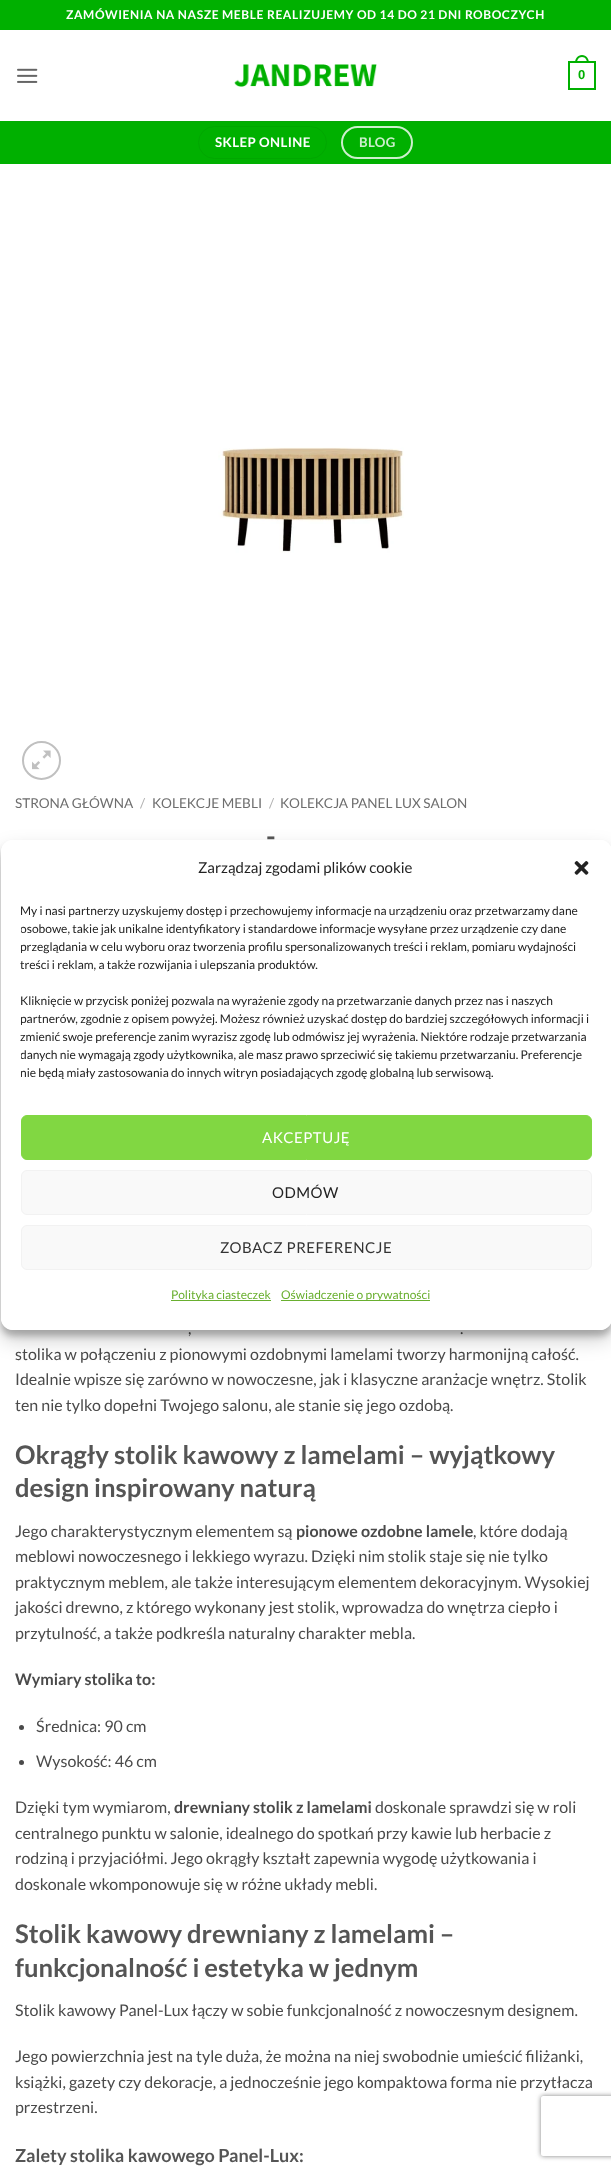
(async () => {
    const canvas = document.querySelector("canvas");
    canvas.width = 611;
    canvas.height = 2170;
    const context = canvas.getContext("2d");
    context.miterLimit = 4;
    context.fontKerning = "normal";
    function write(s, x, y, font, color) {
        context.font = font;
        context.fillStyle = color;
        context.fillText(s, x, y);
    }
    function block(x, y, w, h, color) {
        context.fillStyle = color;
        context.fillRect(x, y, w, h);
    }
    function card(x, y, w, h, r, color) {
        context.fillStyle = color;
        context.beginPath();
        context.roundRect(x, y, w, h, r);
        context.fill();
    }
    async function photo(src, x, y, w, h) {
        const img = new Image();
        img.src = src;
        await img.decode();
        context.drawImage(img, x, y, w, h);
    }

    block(0, 0, 611, 2170, "rgb(255, 255, 255)");
    block(0, 0, 611, 30, "rgb(0, 176, 0)");
    context.letterSpacing = "0.6px";
    write("ZAMÓWIENIA NA NASZE MEBLE REALIZUJEMY OD 14 DO 21 DNI ROBOCZYCH", 66, 19, "bold 12px Lato", "rgb(255, 255, 255)");
    await photo("media/1.png", 17, 68, 21, 15);
    await photo("media/2.png", 234, 64, 143, 23);
    context.strokeStyle = "rgb(0, 176, 0)";
    context.lineWidth = 2;
    context.strokeRect(569, 62, 26, 27);
    context.fillStyle = "rgb(0, 176, 0)";
    context.beginPath();
    context.moveTo(582, 55);
    context.bezierCurveTo(586.5, 55, 589, 59, 589, 63);
    context.lineTo(575, 63);
    context.bezierCurveTo(575, 59, 577.5, 55, 582, 55);
    context.closePath();
    context.moveTo(582, 57);
    context.bezierCurveTo(585.5, 57, 587, 60, 587, 63);
    context.lineTo(577, 63);
    context.bezierCurveTo(577, 60, 578.5, 57, 582, 57);
    context.closePath();
    context.fill("evenodd");
    context.letterSpacing = "0px";
    write("0", 578, 79, "bold 13px Liberation Sans", "rgb(0, 176, 0)");
    block(0, 121, 611, 43, "rgb(0, 176, 0)");
    block(15, 121, 581, 1, "rgb(7, 166, 7)");
    context.beginPath();
    context.roundRect(198.5, 126.5, 128, 32, 16);
    context.strokeStyle = "rgb(0, 167, 0)";
    context.lineWidth = 1;
    context.stroke();
    context.letterSpacing = "0.4px";
    write("SKLEP ONLINE", 215, 147, "bold 13.25px Lato", "rgb(255, 255, 255)");
    context.beginPath();
    context.roundRect(342, 127, 70, 31, 15.5);
    context.strokeStyle = "rgb(204, 239, 204)";
    context.lineWidth = 2;
    context.stroke();
    write("BLOG", 359, 147, "bold 13.25px Lato", "rgb(204, 239, 204)");
    await photo("media/3.png", 218, 447, 186, 106);
    context.beginPath();
    context.arc(41.5, 760.5, 18.5, 0, Math.PI * 2);
    context.strokeStyle = "rgb(192, 192, 192)";
    context.stroke();
    await photo("media/4.png", 32, 750, 19, 20);
    context.letterSpacing = "0px";
    write("STRONA GŁÓWNA", 15, 808, "13.6px Lato", "rgb(110, 110, 110)");
    write("/", 140, 808, "13.6px Lato", "rgb(178, 178, 178)");
    write("KOLEKCJE MEBLI", 152, 808, "13.6px Lato", "rgb(110, 110, 110)");
    write("/", 269, 808, "13.6px Lato", "rgb(178, 178, 178)");
    write("KOLEKCJA PANEL LUX SALON", 280, 808, "13.6px Lato", "rgb(110, 110, 110)");
    write("-", 266, 846, "bold 27px Lato", "rgb(85, 85, 85)");
    write(",", 188, 1334, "16px Lato", "rgb(74, 74, 74)");
    write(".", 460, 1334, "16px Lato", "rgb(74, 74, 74)");
    write("stolika w połączeniu z pionowymi ozdobnymi lamelami tworzy harmonijną całość.", 15, 1360, "16px Lato", "rgb(74, 74, 74)");
    write("Idealnie wpisze się zarówno w nowoczesne, jak i klasyczne aranżacje wnętrz. Stolik", 15, 1385, "16px Lato", "rgb(74, 74, 74)");
    write("ten nie tylko dopełni Twojego salonu, ale stanie się jego ozdobą.", 15, 1411, "16px Lato", "rgb(74, 74, 74)");
    write("Okrągły stolik kawowy z lamelami – wyjątkowy", 15, 1464, "bold 25.6px Lato", "rgb(85, 85, 85)");
    write("design inspirowany naturą", 15, 1497, "bold 25.6px Lato", "rgb(85, 85, 85)");
    write("Jego charakterystycznym elementem są", 15, 1537, "16px Lato", "rgb(74, 74, 74)");
    write("pionowe ozdobne lamele", 296, 1537, "bold 16px Lato", "rgb(74, 74, 74)");
    write(", które dodają", 473, 1537, "16px Lato", "rgb(74, 74, 74)");
    write("meblowi nowoczesnego i lekkiego wyrazu. Dzięki nim stolik staje się nie tylko", 15, 1562, "16px Lato", "rgb(74, 74, 74)");
    write("praktycznym meblem, ale także interesującym elementem dekoracyjnym. Wysokiej", 15, 1588, "16px Lato", "rgb(74, 74, 74)");
    write("jakości drewno, z którego wykonany jest stolik, wprowadza do wnętrza ciepło i", 15, 1613, "16px Lato", "rgb(74, 74, 74)");
    write("przytulność, a także podkreśla naturalny charakter mebla.", 15, 1639, "16px Lato", "rgb(74, 74, 74)");
    write("Wymiary stolika to:", 15, 1685, "bold 16px Lato", "rgb(74, 74, 74)");
    context.beginPath();
    context.arc(21.5, 1727.5, 2.5, 0, Math.PI * 2);
    context.fill();
    write("Średnica: 90 cm", 36, 1732, "16px Lato", "rgb(74, 74, 74)");
    context.beginPath();
    context.arc(21.5, 1762.5, 2.5, 0, Math.PI * 2);
    context.fill();
    write("Wysokość: 46 cm", 36, 1767, "16px Lato", "rgb(74, 74, 74)");
    write("Dzięki tym wymiarom,", 15, 1813, "16px Lato", "rgb(74, 74, 74)");
    write("drewniany stolik z lamelami", 174, 1813, "bold 16px Lato", "rgb(74, 74, 74)");
    write("doskonale sprawdzi się w roli", 375, 1813, "16px Lato", "rgb(74, 74, 74)");
    write("centralnego punktu w salonie, idealnego do spotkań przy kawie lub herbacie z", 15, 1839, "16px Lato", "rgb(74, 74, 74)");
    write("rodziną i przyjaciółmi. Jego okrągły kształt zapewnia wygodę użytkowania i", 15, 1864, "16px Lato", "rgb(74, 74, 74)");
    write("doskonale wkomponowuje się w różne układy mebli.", 15, 1890, "16px Lato", "rgb(74, 74, 74)");
    write("Stolik kawowy drewniany z lamelami –", 15, 1943, "bold 25.6px Lato", "rgb(85, 85, 85)");
    write("funkcjonalność i estetyka w jednym", 15, 1977, "bold 25.6px Lato", "rgb(85, 85, 85)");
    write("Stolik kawowy Panel-Lux łączy w sobie funkcjonalność z nowoczesnym designem.", 15, 2016, "16px Lato", "rgb(74, 74, 74)");
    write("Jego powierzchnia jest na tyle duża, że można na niej swobodnie umieścić filiżanki,", 15, 2062, "16px Lato", "rgb(74, 74, 74)");
    write("książki, gazety czy dekoracje, a jednocześnie jego kompaktowa forma nie przytłacza", 15, 2088, "16px Lato", "rgb(74, 74, 74)");
    write("przestrzeni.", 15, 2113, "16px Lato", "rgb(74, 74, 74)");
    write("Zalety stolika kawowego Panel-Lux:", 15, 2162, "bold 18px Lato", "rgb(85, 85, 85)");
    context.save();
    context.beginPath();
    context.moveTo(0, 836);
    context.lineTo(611, 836);
    context.lineTo(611, 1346);
    context.lineTo(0, 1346);
    context.closePath();
    context.moveTo(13, 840);
    context.lineTo(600, 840);
    context.bezierCurveTo(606.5, 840, 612, 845.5, 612, 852);
    context.lineTo(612, 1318);
    context.bezierCurveTo(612, 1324.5, 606.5, 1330, 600, 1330);
    context.lineTo(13, 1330);
    context.bezierCurveTo(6.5, 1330, 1, 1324.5, 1, 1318);
    context.lineTo(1, 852);
    context.bezierCurveTo(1, 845.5, 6.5, 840, 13, 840);
    context.closePath();
    context.clip("evenodd");
    context.fillStyle = "rgba(0, 0, 0, 0.23)";
    context.filter = "blur(3px)";
    context.beginPath();
    context.roundRect(1, 846, 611, 490, 12);
    context.fill();
    context.filter = "none";
    context.restore();
    context.save();
    context.beginPath();
    context.moveTo(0, 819);
    context.lineTo(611, 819);
    context.lineTo(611, 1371);
    context.lineTo(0, 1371);
    context.closePath();
    context.moveTo(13, 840);
    context.lineTo(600, 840);
    context.bezierCurveTo(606.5, 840, 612, 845.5, 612, 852);
    context.lineTo(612, 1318);
    context.bezierCurveTo(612, 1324.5, 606.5, 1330, 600, 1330);
    context.lineTo(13, 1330);
    context.bezierCurveTo(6.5, 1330, 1, 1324.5, 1, 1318);
    context.lineTo(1, 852);
    context.bezierCurveTo(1, 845.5, 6.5, 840, 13, 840);
    context.closePath();
    context.clip("evenodd");
    context.fillStyle = "rgba(0, 0, 0, 0.19)";
    context.filter = "blur(10px)";
    context.beginPath();
    context.roundRect(1, 850, 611, 490, 12);
    context.fill();
    context.filter = "none";
    context.restore();
    card(1, 840, 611, 490, 12, "rgb(255, 255, 255)");
    write("Zarządzaj zgodami plików cookie", 198, 873, "15px Lato", "rgb(34, 34, 34)");
    await photo("media/5.png", 574, 861, 15, 14);
    write("My i nasi partnerzy uzyskujemy dostęp i przechowujemy informacje na urządzeniu oraz przetwarzamy dane", 20, 915, "12px Lato", "rgb(34, 34, 34)");
    context.save();
    context.beginPath();
    context.rect(21, 902, 571, 185);
    context.clip();
    write("osobowe, takie jak unikalne identyfikatory i standardowe informacje wysyłane przez urządzenie czy dane", 20, 933, "12px Lato", "rgb(34, 34, 34)");
    write("przeglądania w celu wyboru oraz tworzenia profilu spersonalizowanych treści i reklam, pomiaru wydajności", 20, 951, "12px Lato", "rgb(34, 34, 34)");
    context.restore();
    write("treści i reklam, a także rozwijania i ulepszania produktów.", 20, 969, "12px Lato", "rgb(34, 34, 34)");
    write("Kliknięcie w przycisk poniżej pozwala na wyrażenie zgody na przetwarzanie danych przez nas i naszych", 20, 1005, "12px Lato", "rgb(34, 34, 34)");
    context.save();
    context.beginPath();
    context.rect(21, 902, 571, 185);
    context.clip();
    write("partnerów, zgodnie z opisem powyżej. Możesz również uzyskać dostęp do bardziej szczegółowych informacji i", 20, 1023, "12px Lato", "rgb(34, 34, 34)");
    context.restore();
    write("zmienić swoje preferencje zanim wyrazisz zgodę lub odmówisz jej wyrażenia. Niektóre rodzaje przetwarzania", 20, 1041, "12px Lato", "rgb(34, 34, 34)");
    context.save();
    context.beginPath();
    context.rect(21, 902, 571, 185);
    context.clip();
    write("danych nie wymagają zgody użytkownika, ale masz prawo sprzeciwić się takiemu przetwarzaniu. Preferencje", 20, 1059, "12px Lato", "rgb(34, 34, 34)");
    write("nie będą miały zastosowania do innych witryn posiadających zgodę globalną lub serwisową.", 20, 1077, "12px Lato", "rgb(34, 34, 34)");
    context.restore();
    context.fillStyle = "rgb(129, 215, 66)";
    context.beginPath();
    context.roundRect(21.5, 1115.5, 570, 44, 5.5);
    context.fill();
    context.strokeStyle = "rgb(129, 215, 66)";
    context.lineWidth = 1;
    context.stroke();
    context.letterSpacing = "0.5px";
    write("AKCEPTUJĘ", 262, 1143, "15px Lato", "rgb(255, 255, 255)");
    context.fillStyle = "rgb(249, 249, 249)";
    context.beginPath();
    context.roundRect(21.5, 1170.5, 570, 44, 5.5);
    context.fill();
    context.strokeStyle = "rgb(242, 242, 242)";
    context.stroke();
    write("ODMÓW", 272, 1198, "15px Lato", "rgb(34, 34, 34)");
    context.fillStyle = "rgb(249, 249, 249)";
    context.beginPath();
    context.roundRect(21.5, 1225.5, 570, 44, 5.5);
    context.fill();
    context.stroke();
    write("ZOBACZ PREFERENCJE", 220, 1253, "15px Lato", "rgb(51, 51, 51)");
    block(171, 1300, 100, 1, "rgb(105, 175, 47)");
    context.letterSpacing = "0px";
    write("Polityka ciasteczek", 171, 1299, "12px Lato", "rgb(105, 175, 47)");
    block(281, 1300, 149, 1, "rgb(105, 175, 47)");
    write("Oświadczenie o prywatności", 281, 1299, "12px Lato", "rgb(105, 175, 47)");
    context.save();
    context.beginPath();
    context.moveTo(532, 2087);
    context.lineTo(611, 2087);
    context.lineTo(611, 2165);
    context.lineTo(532, 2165);
    context.closePath();
    context.moveTo(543, 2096);
    context.lineTo(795, 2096);
    context.bezierCurveTo(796, 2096, 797, 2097, 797, 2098);
    context.lineTo(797, 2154);
    context.bezierCurveTo(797, 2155, 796, 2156, 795, 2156);
    context.lineTo(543, 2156);
    context.bezierCurveTo(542, 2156, 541, 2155, 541, 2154);
    context.lineTo(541, 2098);
    context.bezierCurveTo(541, 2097, 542, 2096, 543, 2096);
    context.closePath();
    context.clip("evenodd");
    context.fillStyle = "rgb(128, 128, 128)";
    context.filter = "blur(2.5px)";
    context.beginPath();
    context.roundRect(541, 2096, 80, 60, 2);
    context.fill();
    context.filter = "none";
    context.restore();
})();
